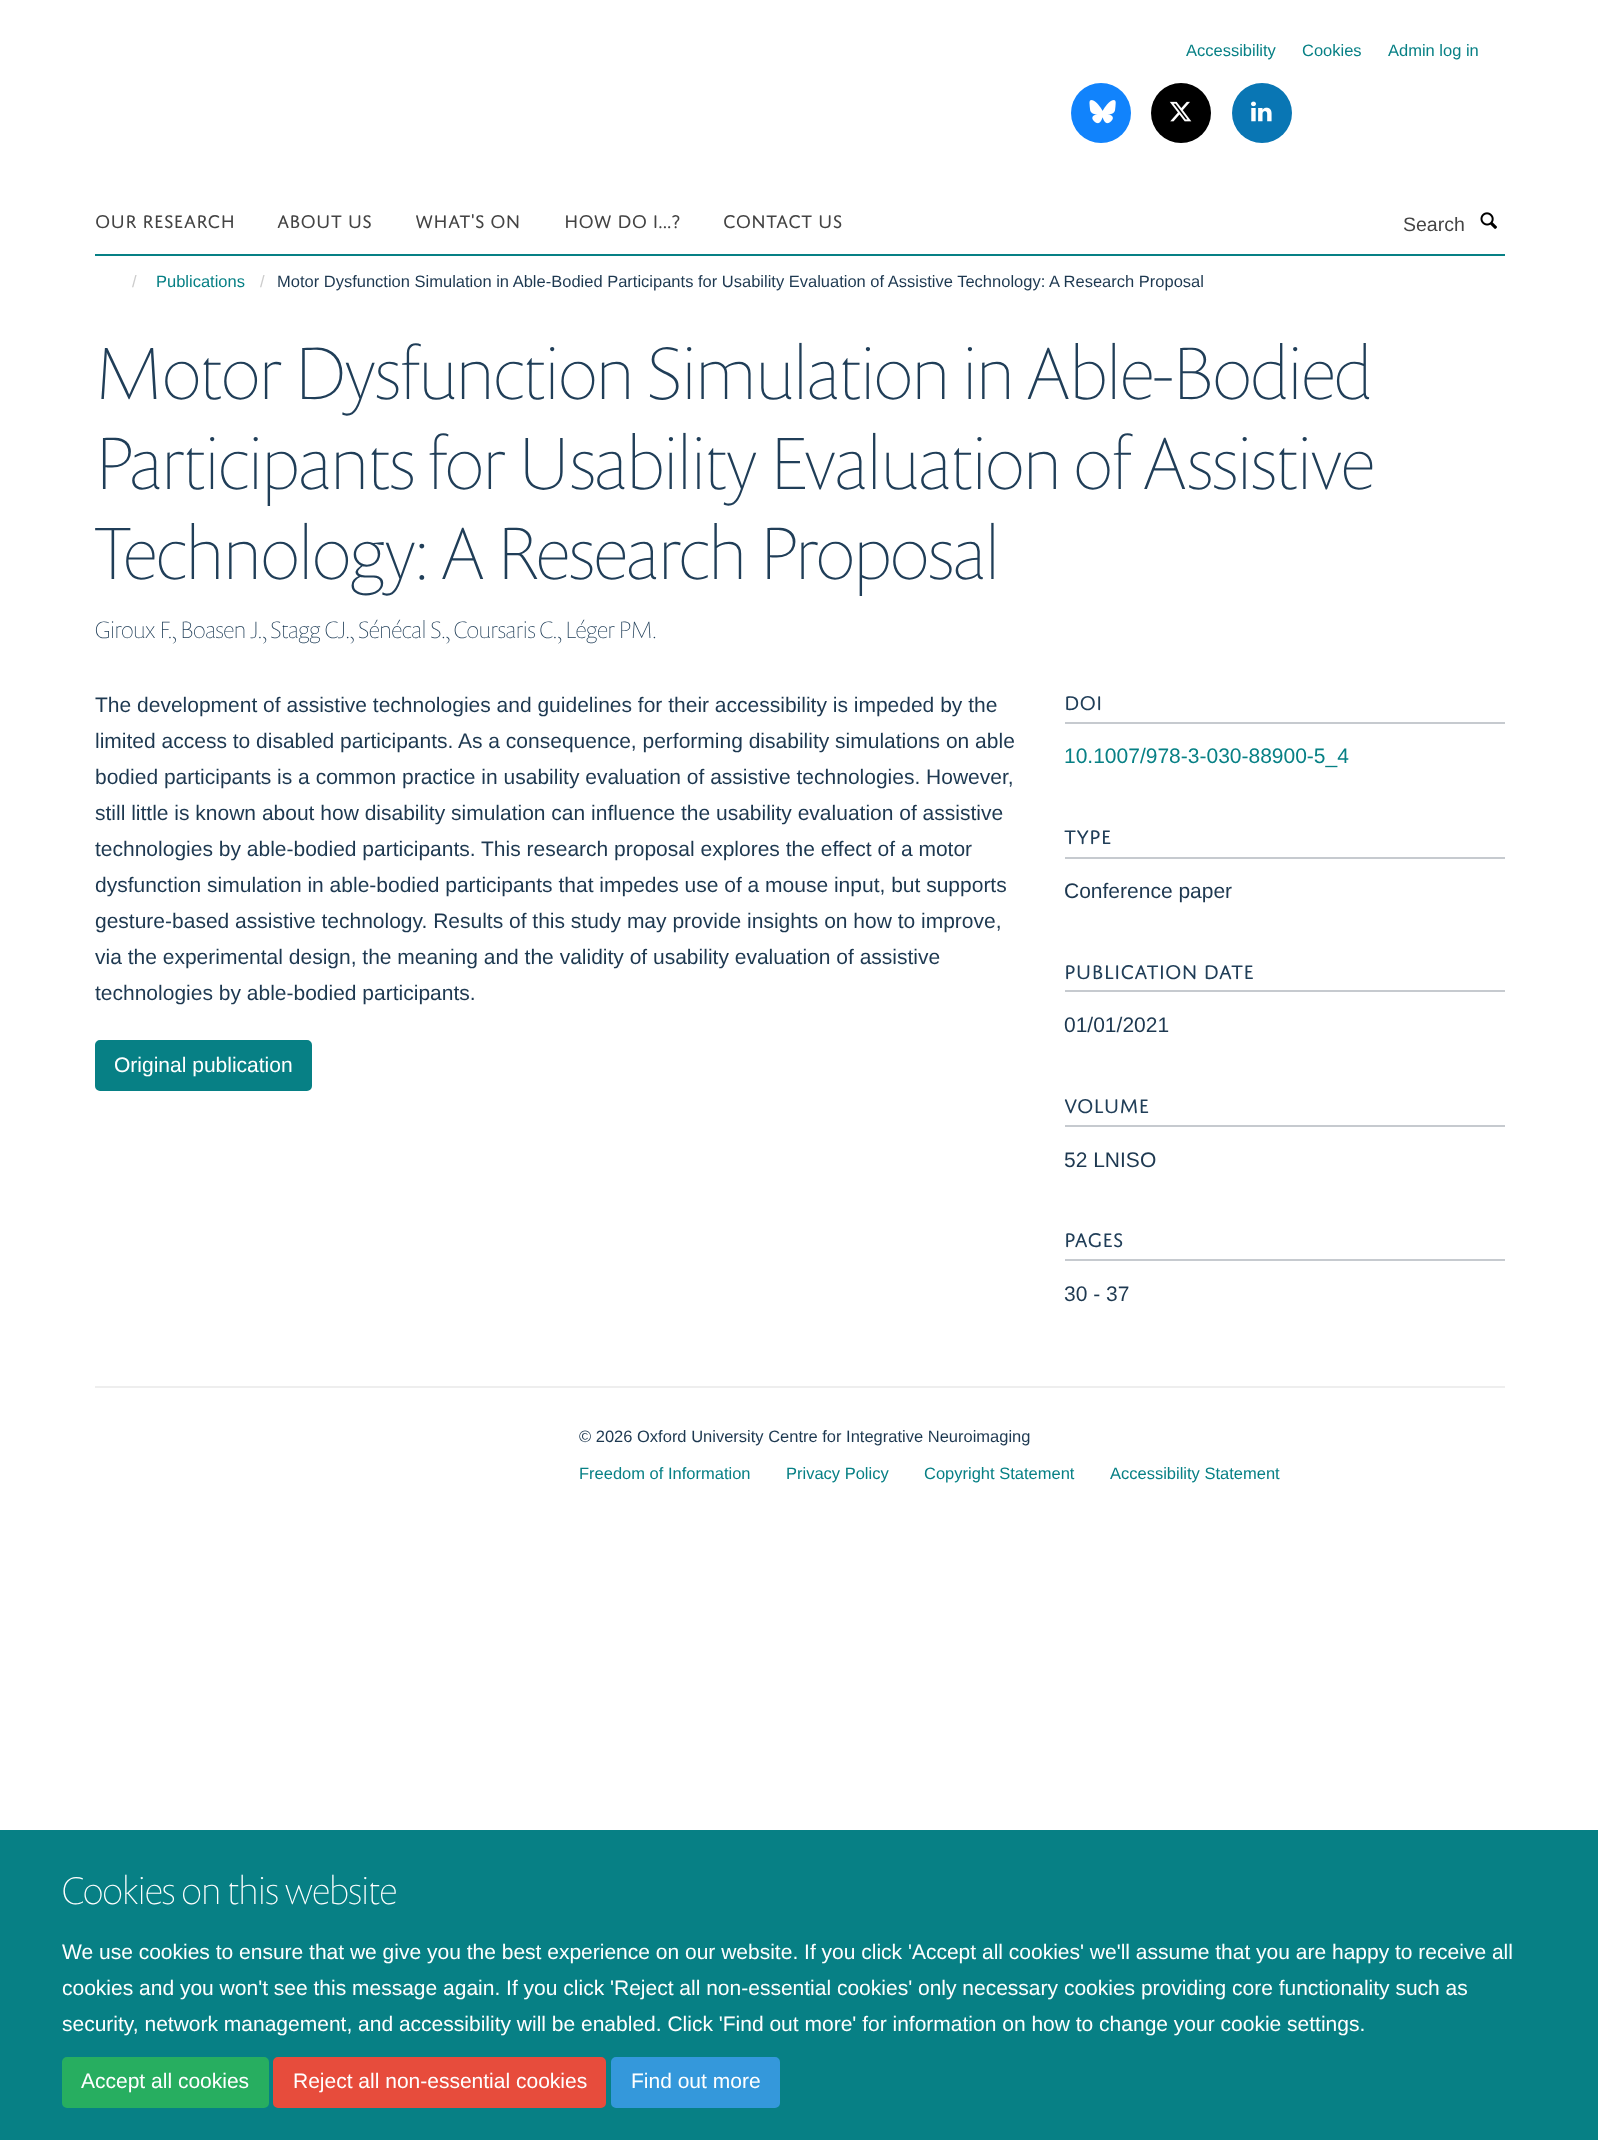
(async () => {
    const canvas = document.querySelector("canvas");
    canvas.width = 1598;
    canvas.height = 2140;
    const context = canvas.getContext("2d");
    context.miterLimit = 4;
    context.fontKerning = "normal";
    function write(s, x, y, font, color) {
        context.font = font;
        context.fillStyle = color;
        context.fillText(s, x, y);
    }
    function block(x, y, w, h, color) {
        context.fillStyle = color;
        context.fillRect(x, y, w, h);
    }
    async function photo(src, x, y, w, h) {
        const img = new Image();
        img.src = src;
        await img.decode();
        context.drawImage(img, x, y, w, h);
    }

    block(0, 0, 1598, 2140, "rgb(255, 255, 255)");
    write("Accessibility", 1186, 56, "16.5px Liberation Sans", "rgb(7, 128, 133)");
    write("Cookies", 1302, 56, "16.5px Liberation Sans", "rgb(7, 128, 133)");
    write("Admin log in", 1388, 56, "16.5px Liberation Sans", "rgb(7, 128, 133)");
    context.fillStyle = "rgb(17, 131, 252)";
    context.beginPath();
    context.arc(1101, 113, 30, 0, Math.PI * 2);
    context.fill();
    await photo("media/1.png", 1089, 100, 27, 24);
    context.fillStyle = "rgb(0, 0, 0)";
    context.beginPath();
    context.arc(1181, 113, 30, 0, Math.PI * 2);
    context.fill();
    await photo("media/2.png", 1169, 101, 23, 21);
    context.fillStyle = "rgb(9, 118, 180)";
    context.beginPath();
    context.arc(1262, 113, 30, 0, Math.PI * 2);
    context.fill();
    await photo("media/3.png", 1251, 101, 21, 21);
    block(95, 254, 1410, 2, "rgb(7, 128, 133)");
    write("OUR RESEARCH", 95, 228, "19.5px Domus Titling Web", "rgb(68, 68, 68)");
    write("ABOUT US", 277, 228, "19.5px Domus Titling Web", "rgb(68, 68, 68)");
    write("WHAT'S ON", 415, 228, "19.5px Domus Titling Web", "rgb(68, 68, 68)");
    write("HOW DO I...?", 564, 228, "19.5px Domus Titling Web", "rgb(68, 68, 68)");
    write("CONTACT US", 723, 228, "19.5px Domus Titling Web", "rgb(68, 68, 68)");
    write("Search", 1403, 231, "19.5px Liberation Sans", "rgb(68, 68, 68)");
    await photo("media/4.png", 1480, 212, 17, 17);
    write("/", 132, 287, "16.5px Liberation Sans", "rgb(204, 204, 204)");
    write("Publications", 156, 287, "16.5px Liberation Sans", "rgb(7, 128, 133)");
    write("/", 260, 287, "16.5px Liberation Sans", "rgb(204, 204, 204)");
    write("Motor Dysfunction Simulation in Able-Bodied Participants for Usability Evaluation of Assistive Technology: A Research Proposal", 277, 287, "16.5px Liberation Sans", "rgb(29, 56, 80)");
    write("Motor Dysfunction Simulation in Able-Bodied", 95, 399, "100 75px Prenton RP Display", "rgb(32, 62, 88)");
    write("Participants for Usability Evaluation of Assistive", 95, 489, "100 75px Prenton RP Display", "rgb(32, 62, 88)");
    write("Technology: A Research Proposal", 95, 579, "100 75px Prenton RP Display", "rgb(32, 62, 88)");
    write("Giroux F., Boasen J., Stagg CJ., Sénécal S., Coursaris C., Léger PM.", 95, 638, "100 24px Prenton RP Display", "rgb(32, 62, 88)");
    write("The development of assistive technologies and guidelines for their accessibility is impeded by the", 95, 712, "21px Liberation Sans", "rgb(29, 56, 80)");
    write("limited access to disabled participants. As a consequence, performing disability simulations on able", 95, 748, "21px Liberation Sans", "rgb(29, 56, 80)");
    write("bodied participants is a common practice in usability evaluation of assistive technologies. However,", 95, 784, "21px Liberation Sans", "rgb(29, 56, 80)");
    write("still little is known about how disability simulation can influence the usability evaluation of assistive", 95, 820, "21px Liberation Sans", "rgb(29, 56, 80)");
    write("technologies by able-bodied participants. This research proposal explores the effect of a motor", 95, 856, "21px Liberation Sans", "rgb(29, 56, 80)");
    write("dysfunction simulation in able-bodied participants that impedes use of a mouse input, but supports", 95, 892, "21px Liberation Sans", "rgb(29, 56, 80)");
    write("gesture-based assistive technology. Results of this study may provide insights on how to improve,", 95, 928, "21px Liberation Sans", "rgb(29, 56, 80)");
    write("via the experimental design, the meaning and the validity of usability evaluation of assistive", 95, 964, "21px Liberation Sans", "rgb(29, 56, 80)");
    write("technologies by able-bodied participants.", 95, 1000, "21px Liberation Sans", "rgb(29, 56, 80)");
    context.fillStyle = "rgb(7, 128, 133)";
    context.beginPath();
    context.roundRect(96, 1041, 215, 49, 4);
    context.fill();
    context.strokeStyle = "rgb(7, 128, 133)";
    context.lineWidth = 2;
    context.stroke();
    write("Original publication", 114, 1072, "21px Liberation Sans", "rgb(255, 255, 255)");
    block(1065, 722, 440, 2, "rgb(198, 202, 207)");
    write("DOI", 1064, 710, "21px Domus Titling Web", "rgb(32, 62, 88)");
    write("10.1007/978-3-030-88900-5_4", 1064, 763, "21px Liberation Sans", "rgb(7, 128, 133)");
    block(1065, 857, 440, 2, "rgb(198, 202, 207)");
    write("TYPE", 1064, 844, "21px Domus Titling Web", "rgb(32, 62, 88)");
    write("Conference paper", 1064, 898, "21px Liberation Sans", "rgb(29, 56, 80)");
    block(1065, 990, 440, 2, "rgb(198, 202, 207)");
    write("PUBLICATION DATE", 1064, 979, "21px Domus Titling Web", "rgb(32, 62, 88)");
    write("01/01/2021", 1064, 1032, "21px Liberation Sans", "rgb(29, 56, 80)");
    block(1065, 1125, 440, 2, "rgb(198, 202, 207)");
    write("VOLUME", 1064, 1113, "21px Domus Titling Web", "rgb(32, 62, 88)");
    write("52 LNISO", 1064, 1167, "21px Liberation Sans", "rgb(29, 56, 80)");
    block(1065, 1259, 440, 2, "rgb(198, 202, 207)");
    write("PAGES", 1064, 1247, "21px Domus Titling Web", "rgb(32, 62, 88)");
    write("30 - 37", 1064, 1301, "21px Liberation Sans", "rgb(29, 56, 80)");
    block(95, 1386, 1410, 2, "rgb(238, 238, 238)");
    write("© 2026 Oxford University Centre for Integrative Neuroimaging", 579, 1442, "16.5px Liberation Sans", "rgb(29, 56, 80)");
    write("Freedom of Information", 579, 1479, "16.5px Liberation Sans", "rgb(7, 128, 133)");
    write("Privacy Policy", 786, 1479, "16.5px Liberation Sans", "rgb(7, 128, 133)");
    write("Copyright Statement", 924, 1479, "16.5px Liberation Sans", "rgb(7, 128, 133)");
    write("Accessibility Statement", 1110, 1479, "16.5px Liberation Sans", "rgb(7, 128, 133)");
    block(0, 1830, 1598, 310, "rgb(7, 128, 133)");
    write("Cookies on this website", 62, 1904, "100 39px Prenton RP Display", "rgb(255, 255, 255)");
    write("We use cookies to ensure that we give you the best experience on our website. If you click 'Accept all cookies' we'll assume that you are happy to receive all", 62, 1959, "21px Liberation Sans", "rgb(255, 255, 255)");
    write("cookies and you won't see this message again. If you click 'Reject all non-essential cookies' only necessary cookies providing core functionality such as", 62, 1995, "21px Liberation Sans", "rgb(255, 255, 255)");
    write("security, network management, and accessibility will be enabled. Click 'Find out more' for information on how to change your cookie settings.", 62, 2031, "21px Liberation Sans", "rgb(255, 255, 255)");
    context.fillStyle = "rgb(39, 174, 96)";
    context.beginPath();
    context.roundRect(63, 2058, 205, 49, 4);
    context.fill();
    context.strokeStyle = "rgb(39, 174, 96)";
    context.stroke();
    write("Accept all cookies", 81, 2088, "21px Liberation Sans", "rgb(255, 255, 255)");
    context.fillStyle = "rgb(231, 76, 60)";
    context.beginPath();
    context.roundRect(274, 2058, 331, 49, 4);
    context.fill();
    context.strokeStyle = "rgb(231, 76, 60)";
    context.stroke();
    write("Reject all non-essential cookies", 293, 2088, "21px Liberation Sans", "rgb(255, 255, 255)");
    context.fillStyle = "rgb(52, 152, 219)";
    context.beginPath();
    context.roundRect(612, 2058, 167, 49, 4);
    context.fill();
    context.strokeStyle = "rgb(52, 152, 219)";
    context.stroke();
    write("Find out more", 631, 2088, "21px Liberation Sans", "rgb(255, 255, 255)");
})();
